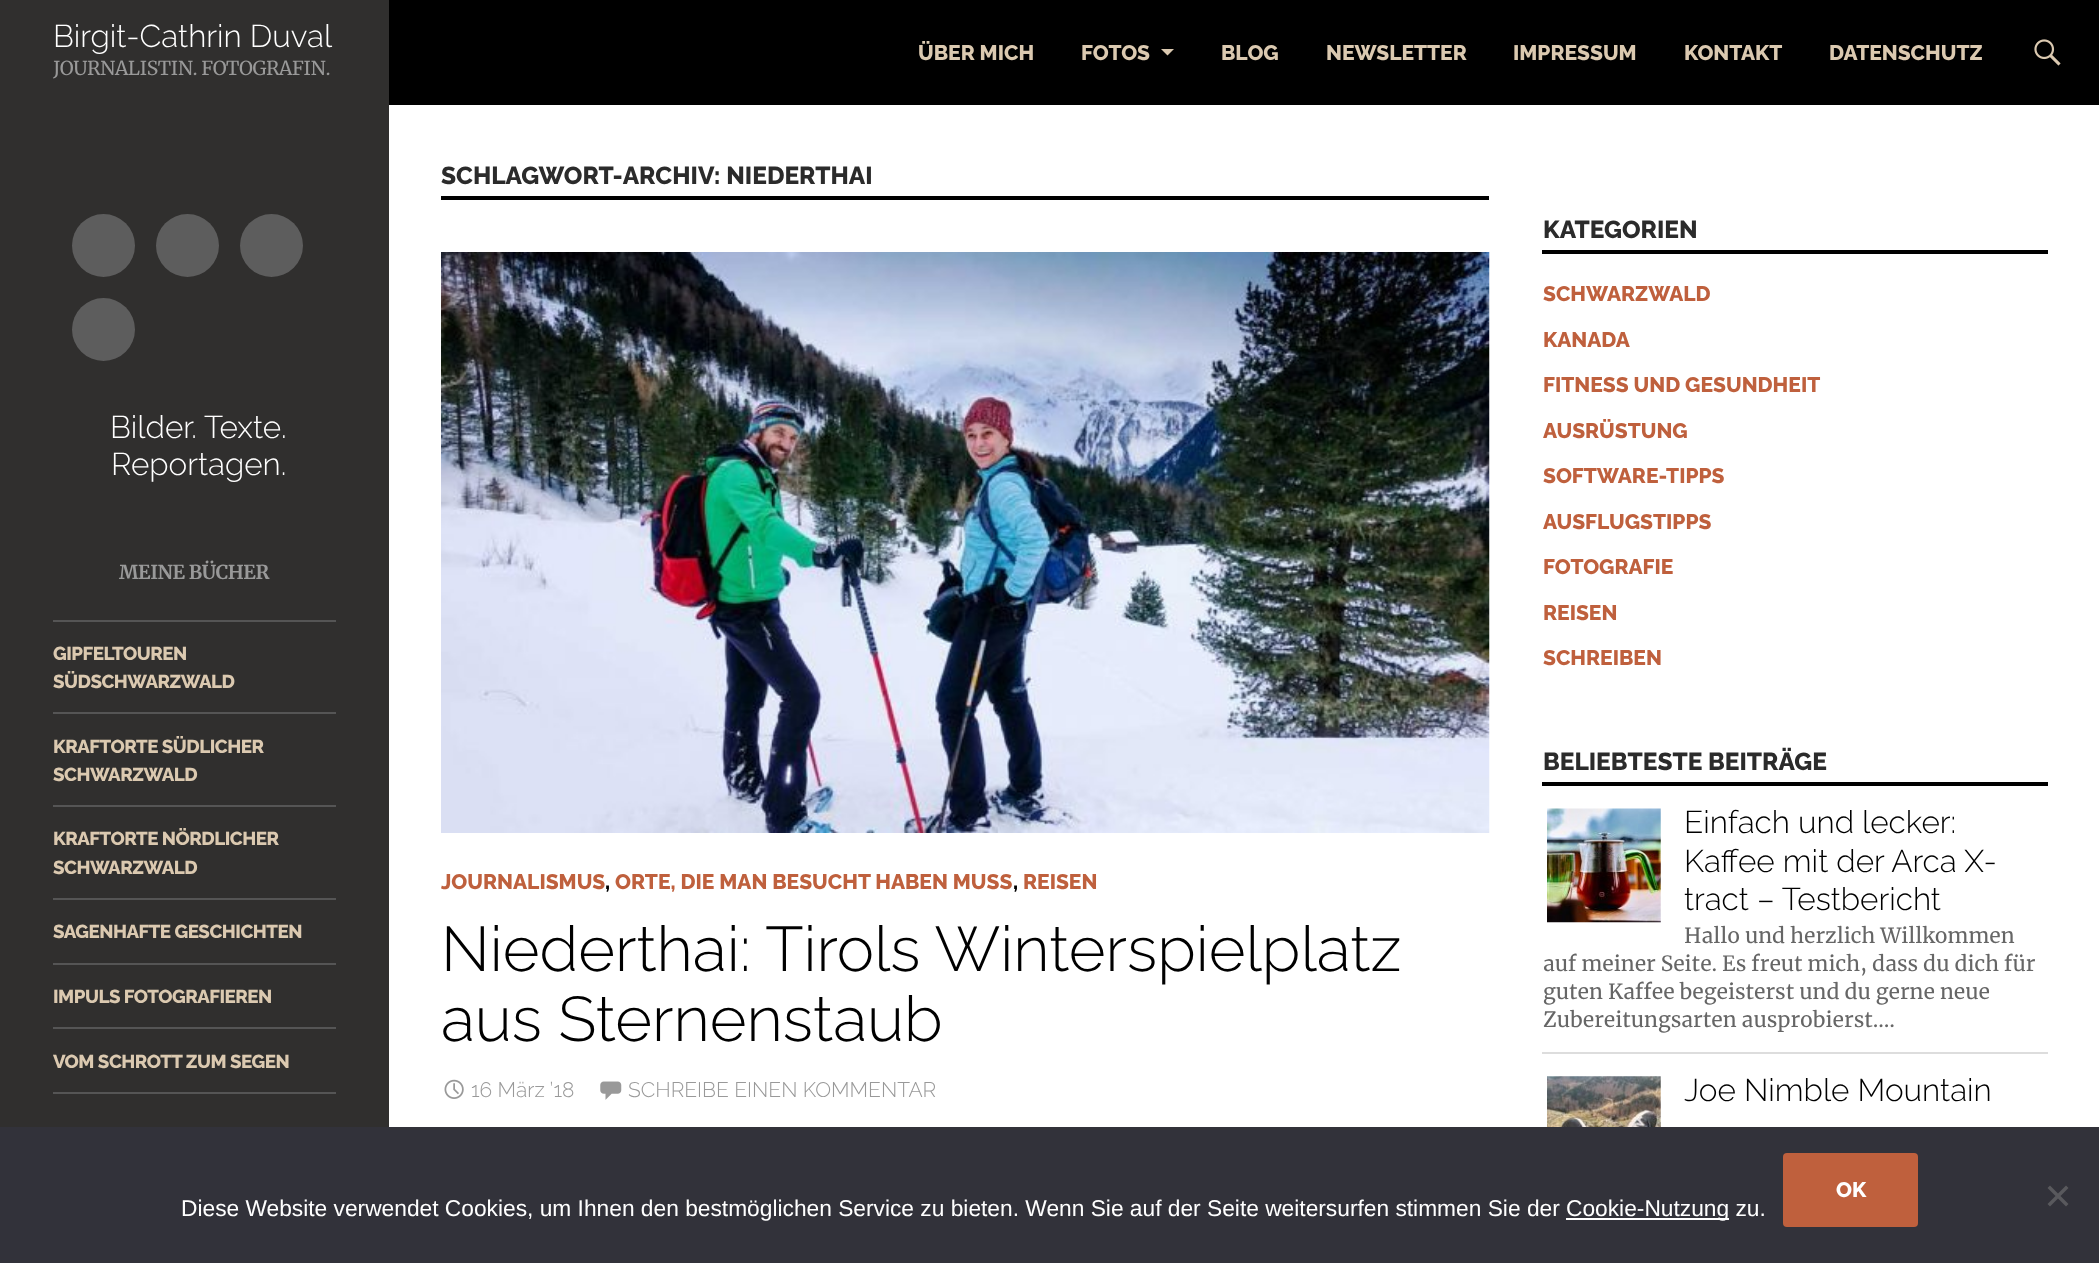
(async () => {
    const canvas = document.querySelector("canvas");
    canvas.width = 2099;
    canvas.height = 1263;
    const context = canvas.getContext("2d");
    context.miterLimit = 4;
    context.fontKerning = "normal";
    function write(s, x, y, font, color) {
        context.font = font;
        context.fillStyle = color;
        context.fillText(s, x, y);
    }
    function block(x, y, w, h, color) {
        context.fillStyle = color;
        context.fillRect(x, y, w, h);
    }
    function card(x, y, w, h, r, color) {
        context.fillStyle = color;
        context.beginPath();
        context.roundRect(x, y, w, h, r);
        context.fill();
    }
    async function photo(src, x, y, w, h) {
        const img = new Image();
        img.src = src;
        await img.decode();
        context.drawImage(img, x, y, w, h);
    }

    block(0, 0, 2099, 1263, "rgb(255, 255, 255)");
    block(0, 0, 389, 1127, "rgb(48, 47, 46)");
    write("Birgit-Cathrin Duval", 53, 47, "300 31.5px Raleway", "rgb(255, 255, 255)");
    context.letterSpacing = "-0.5px";
    write("JOURNALISTIN. FOTOGRAFIN.", 53, 75, "19.25px Merriweather", "rgb(153, 153, 153)");
    context.fillStyle = "rgb(93, 93, 93)";
    context.beginPath();
    context.arc(103.5, 245.5, 31.5, 0, Math.PI * 2);
    context.fill();
    context.beginPath();
    context.arc(187.5, 245.5, 31.5, 0, Math.PI * 2);
    context.fill();
    context.beginPath();
    context.arc(271.5, 245.5, 31.5, 0, Math.PI * 2);
    context.fill();
    context.beginPath();
    context.arc(103.5, 329.5, 31.5, 0, Math.PI * 2);
    context.fill();
    context.letterSpacing = "0px";
    write("Bilder. Texte.", 110, 438, "300 31.5px Raleway", "rgb(255, 255, 255)");
    write("Reportagen.", 111, 475, "300 31.5px Raleway", "rgb(255, 255, 255)");
    context.letterSpacing = "-0.5px";
    write("MEINE BÜCHER", 119, 579, "bold 19.25px Merriweather", "rgb(153, 153, 153)");
    block(53, 1092, 283, 2, "rgb(85, 85, 85)");
    block(53, 620, 283, 2, "rgb(85, 85, 85)");
    write("GIPFELTOUREN", 53, 660, "800 18.75px Raleway", "rgb(219, 201, 176)");
    write("SÜDSCHWARZWALD", 53, 688, "800 18.75px Raleway", "rgb(219, 201, 176)");
    block(53, 712, 283, 2, "rgb(85, 85, 85)");
    write("KRAFTORTE SÜDLICHER", 53, 753, "800 18.75px Raleway", "rgb(219, 201, 176)");
    write("SCHWARZWALD", 53, 781, "800 18.75px Raleway", "rgb(219, 201, 176)");
    block(53, 805, 283, 2, "rgb(85, 85, 85)");
    write("KRAFTORTE NÖRDLICHER", 53, 845, "800 18.75px Raleway", "rgb(219, 201, 176)");
    write("SCHWARZWALD", 53, 874, "800 18.75px Raleway", "rgb(219, 201, 176)");
    block(53, 898, 283, 2, "rgb(85, 85, 85)");
    write("SAGENHAFTE GESCHICHTEN", 53, 938, "800 18.75px Raleway", "rgb(219, 201, 176)");
    block(53, 963, 283, 2, "rgb(85, 85, 85)");
    write("IMPULS FOTOGRAFIEREN", 53, 1003, "800 18.75px Raleway", "rgb(219, 201, 176)");
    block(53, 1027, 283, 2, "rgb(85, 85, 85)");
    write("VOM SCHROTT ZUM SEGEN", 53, 1068, "800 18.75px Raleway", "rgb(219, 201, 176)");
    block(441, 196, 1048, 4, "rgb(0, 0, 0)");
    context.letterSpacing = "0px";
    write("SCHLAGWORT-ARCHIV: NIEDERTHAI", 441, 184, "800 24.5px Raleway", "rgb(43, 43, 43)");
    await photo("media/1.png", 441, 252, 1049, 581);
    write("JOURNALISMUS", 441, 889, "800 21px Raleway", "rgb(191, 96, 61)");
    write(",", 605, 889, "800 21px Raleway", "rgb(0, 0, 0)");
    write("ORTE, DIE MAN BESUCHT HABEN MUSS", 615, 889, "800 21px Raleway", "rgb(191, 96, 61)");
    write(",", 1013, 889, "800 21px Raleway", "rgb(0, 0, 0)");
    write("REISEN", 1023, 889, "800 21px Raleway", "rgb(191, 96, 61)");
    write("Niederthai: Tirols Winterspielplatz", 441, 971, "300 63px Raleway", "rgb(0, 0, 0)");
    write("aus Sternenstaub", 441, 1041, "300 63px Raleway", "rgb(0, 0, 0)");
    await photo("media/2.png", 444, 1079, 20, 20);
    write("16 März ’18", 471, 1097, "300 21px Raleway", "rgb(153, 153, 153)");
    await photo("media/3.png", 600, 1081, 22, 19);
    write("SCHREIBE EINEN KOMMENTAR", 628, 1097, "300 21px Raleway", "rgb(153, 153, 153)");
    block(1542, 250, 506, 4, "rgb(0, 0, 0)");
    write("KATEGORIEN", 1543, 238, "800 24.5px Raleway", "rgb(43, 43, 43)");
    write("SCHWARZWALD", 1543, 301, "800 21px Raleway", "rgb(191, 96, 61)");
    write("KANADA", 1543, 347, "800 21px Raleway", "rgb(191, 96, 61)");
    write("FITNESS UND GESUNDHEIT", 1543, 392, "800 21px Raleway", "rgb(191, 96, 61)");
    write("AUSRÜSTUNG", 1543, 438, "800 21px Raleway", "rgb(191, 96, 61)");
    write("SOFTWARE-TIPPS", 1543, 483, "800 21px Raleway", "rgb(191, 96, 61)");
    write("AUSFLUGSTIPPS", 1543, 529, "800 21px Raleway", "rgb(191, 96, 61)");
    write("FOTOGRAFIE", 1543, 574, "800 21px Raleway", "rgb(191, 96, 61)");
    write("REISEN", 1543, 620, "800 21px Raleway", "rgb(191, 96, 61)");
    write("SCHREIBEN", 1543, 665, "800 21px Raleway", "rgb(191, 96, 61)");
    block(1542, 782, 506, 4, "rgb(0, 0, 0)");
    write("BELIEBTESTE BEITRÄGE", 1543, 770, "800 24.5px Raleway", "rgb(43, 43, 43)");
    block(1542, 1052, 506, 2, "rgb(221, 221, 221)");
    await photo("media/4.png", 1547, 808, 114, 115);
    write("Einfach und lecker:", 1684, 833, "300 31.5px Raleway", "rgb(0, 0, 0)");
    write("Kaffee mit der Arca X-", 1684, 872, "300 31.5px Raleway", "rgb(0, 0, 0)");
    write("tract – Testbericht", 1684, 910, "300 31.5px Raleway", "rgb(0, 0, 0)");
    write("Hallo und herzlich Willkommen", 1684, 943, "21px Merriweather", "rgb(102, 102, 102)");
    write("auf meiner Seite. Es freut mich, dass du dich für", 1543, 971, "21px Merriweather", "rgb(102, 102, 102)");
    write("guten Kaffee begeisterst und du gerne neue", 1543, 999, "21px Merriweather", "rgb(102, 102, 102)");
    write("Zubereitungsarten ausprobierst.…", 1543, 1027, "21px Merriweather", "rgb(102, 102, 102)");
    await photo("media/5.png", 1547, 1076, 114, 51);
    write("Joe Nimble Mountain", 1684, 1101, "300 31.5px Raleway", "rgb(0, 0, 0)");
    block(389, 0, 1710, 105, "rgb(0, 0, 0)");
    write("ÜBER MICH", 918, 60, "800 21px Raleway", "rgb(219, 201, 176)");
    write("FOTOS", 1081, 60, "800 21px Raleway", "rgb(219, 201, 176)");
    context.beginPath();
    context.moveTo(1161, 49);
    context.lineTo(1167.5, 55.5);
    context.lineTo(1174, 49);
    context.closePath();
    context.fill();
    write("BLOG", 1221, 60, "800 21px Raleway", "rgb(219, 201, 176)");
    write("NEWSLETTER", 1326, 60, "800 21px Raleway", "rgb(219, 201, 176)");
    write("IMPRESSUM", 1513, 60, "800 21px Raleway", "rgb(219, 201, 176)");
    write("KONTAKT", 1684, 60, "800 21px Raleway", "rgb(219, 201, 176)");
    write("DATENSCHUTZ", 1829, 60, "800 21px Raleway", "rgb(219, 201, 176)");
    await photo("media/6.png", 2034, 39, 27, 27);
    block(0, 1127, 2099, 136, "rgb(50, 50, 58)");
    card(1783, 1153, 135, 74, 4, "rgb(191, 96, 61)");
    write("OK", 1836, 1197, "800 21px Raleway", "rgb(255, 255, 255)");
    context.fillStyle = "rgb(89, 89, 93)";
    context.beginPath();
    context.moveTo(2066, 1185.5);
    context.lineTo(2068.5, 1188);
    context.lineTo(2050, 1206.5);
    context.lineTo(2047.5, 1204);
    context.closePath();
    context.fill();
    context.beginPath();
    context.moveTo(2047.5, 1188);
    context.lineTo(2050, 1185.5);
    context.lineTo(2068.5, 1204);
    context.lineTo(2066, 1206.5);
    context.closePath();
    context.fill();
    write("Diese Website verwendet Cookies, um Ihnen den bestmöglichen Service zu bieten. Wenn Sie auf der Seite weitersurfen stimmen Sie der", 181, 1216, "22.75px Liberation Sans", "rgb(255, 255, 255)");
    block(1566, 1218, 163, 2, "rgb(255, 255, 255)");
    write("Cookie-Nutzung zu.", 1566, 1216, "22.75px Liberation Sans", "rgb(255, 255, 255)");
})();
